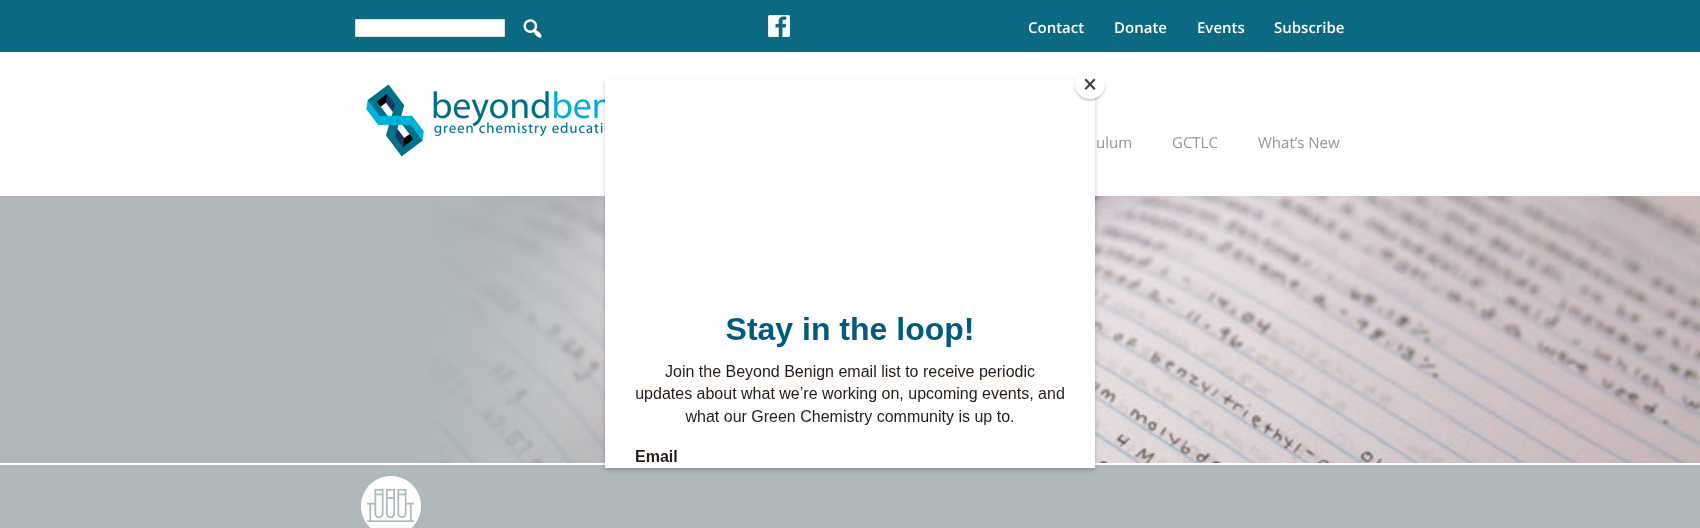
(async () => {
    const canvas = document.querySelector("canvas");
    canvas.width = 1700;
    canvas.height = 528;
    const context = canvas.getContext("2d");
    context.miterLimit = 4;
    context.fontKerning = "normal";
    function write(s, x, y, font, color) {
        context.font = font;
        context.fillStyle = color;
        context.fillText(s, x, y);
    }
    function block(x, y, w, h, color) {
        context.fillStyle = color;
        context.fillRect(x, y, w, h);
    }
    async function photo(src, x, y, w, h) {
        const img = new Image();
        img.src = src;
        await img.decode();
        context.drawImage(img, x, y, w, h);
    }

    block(0, 0, 1700, 528, "rgb(255, 255, 255)");
    await photo("media/4.png", 366, 84, 295, 73);
    await photo("media/5.png", 0, 196, 1700, 267);
    block(0, 465, 1700, 63, "rgb(175, 184, 186)");
    context.save();
    context.beginPath();
    context.moveTo(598, 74);
    context.lineTo(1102, 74);
    context.lineTo(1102, 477);
    context.lineTo(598, 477);
    context.closePath();
    context.moveTo(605, 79);
    context.lineTo(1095, 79);
    context.lineTo(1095, 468);
    context.lineTo(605, 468);
    context.closePath();
    context.clip("evenodd");
    context.fillStyle = "rgba(0, 0, 0, 0.2)";
    context.filter = "blur(2px)";
    context.beginPath();
    context.rect(605, 81, 490, 389);
    context.fill();
    context.filter = "none";
    context.restore();
    await photo("media/1.png", 605, 92, 490, 376);
    context.fillStyle = "rgba(0, 0, 0, 0.2)";
    context.filter = "blur(1px)";
    context.beginPath();
    context.roundRect(1075, 71, 30, 30, 15);
    context.fill();
    context.filter = "none";
    context.fillStyle = "rgb(255, 255, 255)";
    context.beginPath();
    context.arc(1090, 84, 15, 0, Math.PI * 2);
    context.fill();
    context.fillStyle = "rgb(65, 65, 65)";
    context.beginPath();
    context.moveTo(1094, 78.5);
    context.lineTo(1095.5, 80);
    context.lineTo(1086, 90);
    context.lineTo(1084.5, 88.5);
    context.closePath();
    context.fill();
    context.beginPath();
    context.moveTo(1084.5, 80);
    context.lineTo(1086, 78.5);
    context.lineTo(1095.5, 88.5);
    context.lineTo(1094, 90);
    context.closePath();
    context.fill();
    block(0, 0, 1700, 52, "rgb(11, 105, 129)");
    context.fillStyle = "rgb(255, 255, 255)";
    context.beginPath();
    context.rect(355.5, 19.5, 149, 17);
    context.fill();
    context.strokeStyle = "rgb(221, 221, 221)";
    context.stroke();
    await photo("media/2.png", 523, 19, 19, 19);
    await photo("media/3.png", 768, 15, 22, 22);
    write("Contact", 1028, 33, "600 15px Open Sans", "rgb(255, 255, 255)");
    write("Donate", 1114, 33, "600 15px Open Sans", "rgb(255, 255, 255)");
    write("Events", 1197, 33, "600 15px Open Sans", "rgb(255, 255, 255)");
    write("Subscribe", 1274, 33, "600 15px Open Sans", "rgb(255, 255, 255)");
    write("ulum", 1096, 148, "15px Open Sans", "rgb(149, 149, 149)");
    write("GCTLC", 1172, 148, "15px Open Sans", "rgb(149, 149, 149)");
    write("What’s New", 1258, 148, "15px Open Sans", "rgb(149, 149, 149)");
    await photo("media/6.png", 361, 476, 60, 52);
})();
